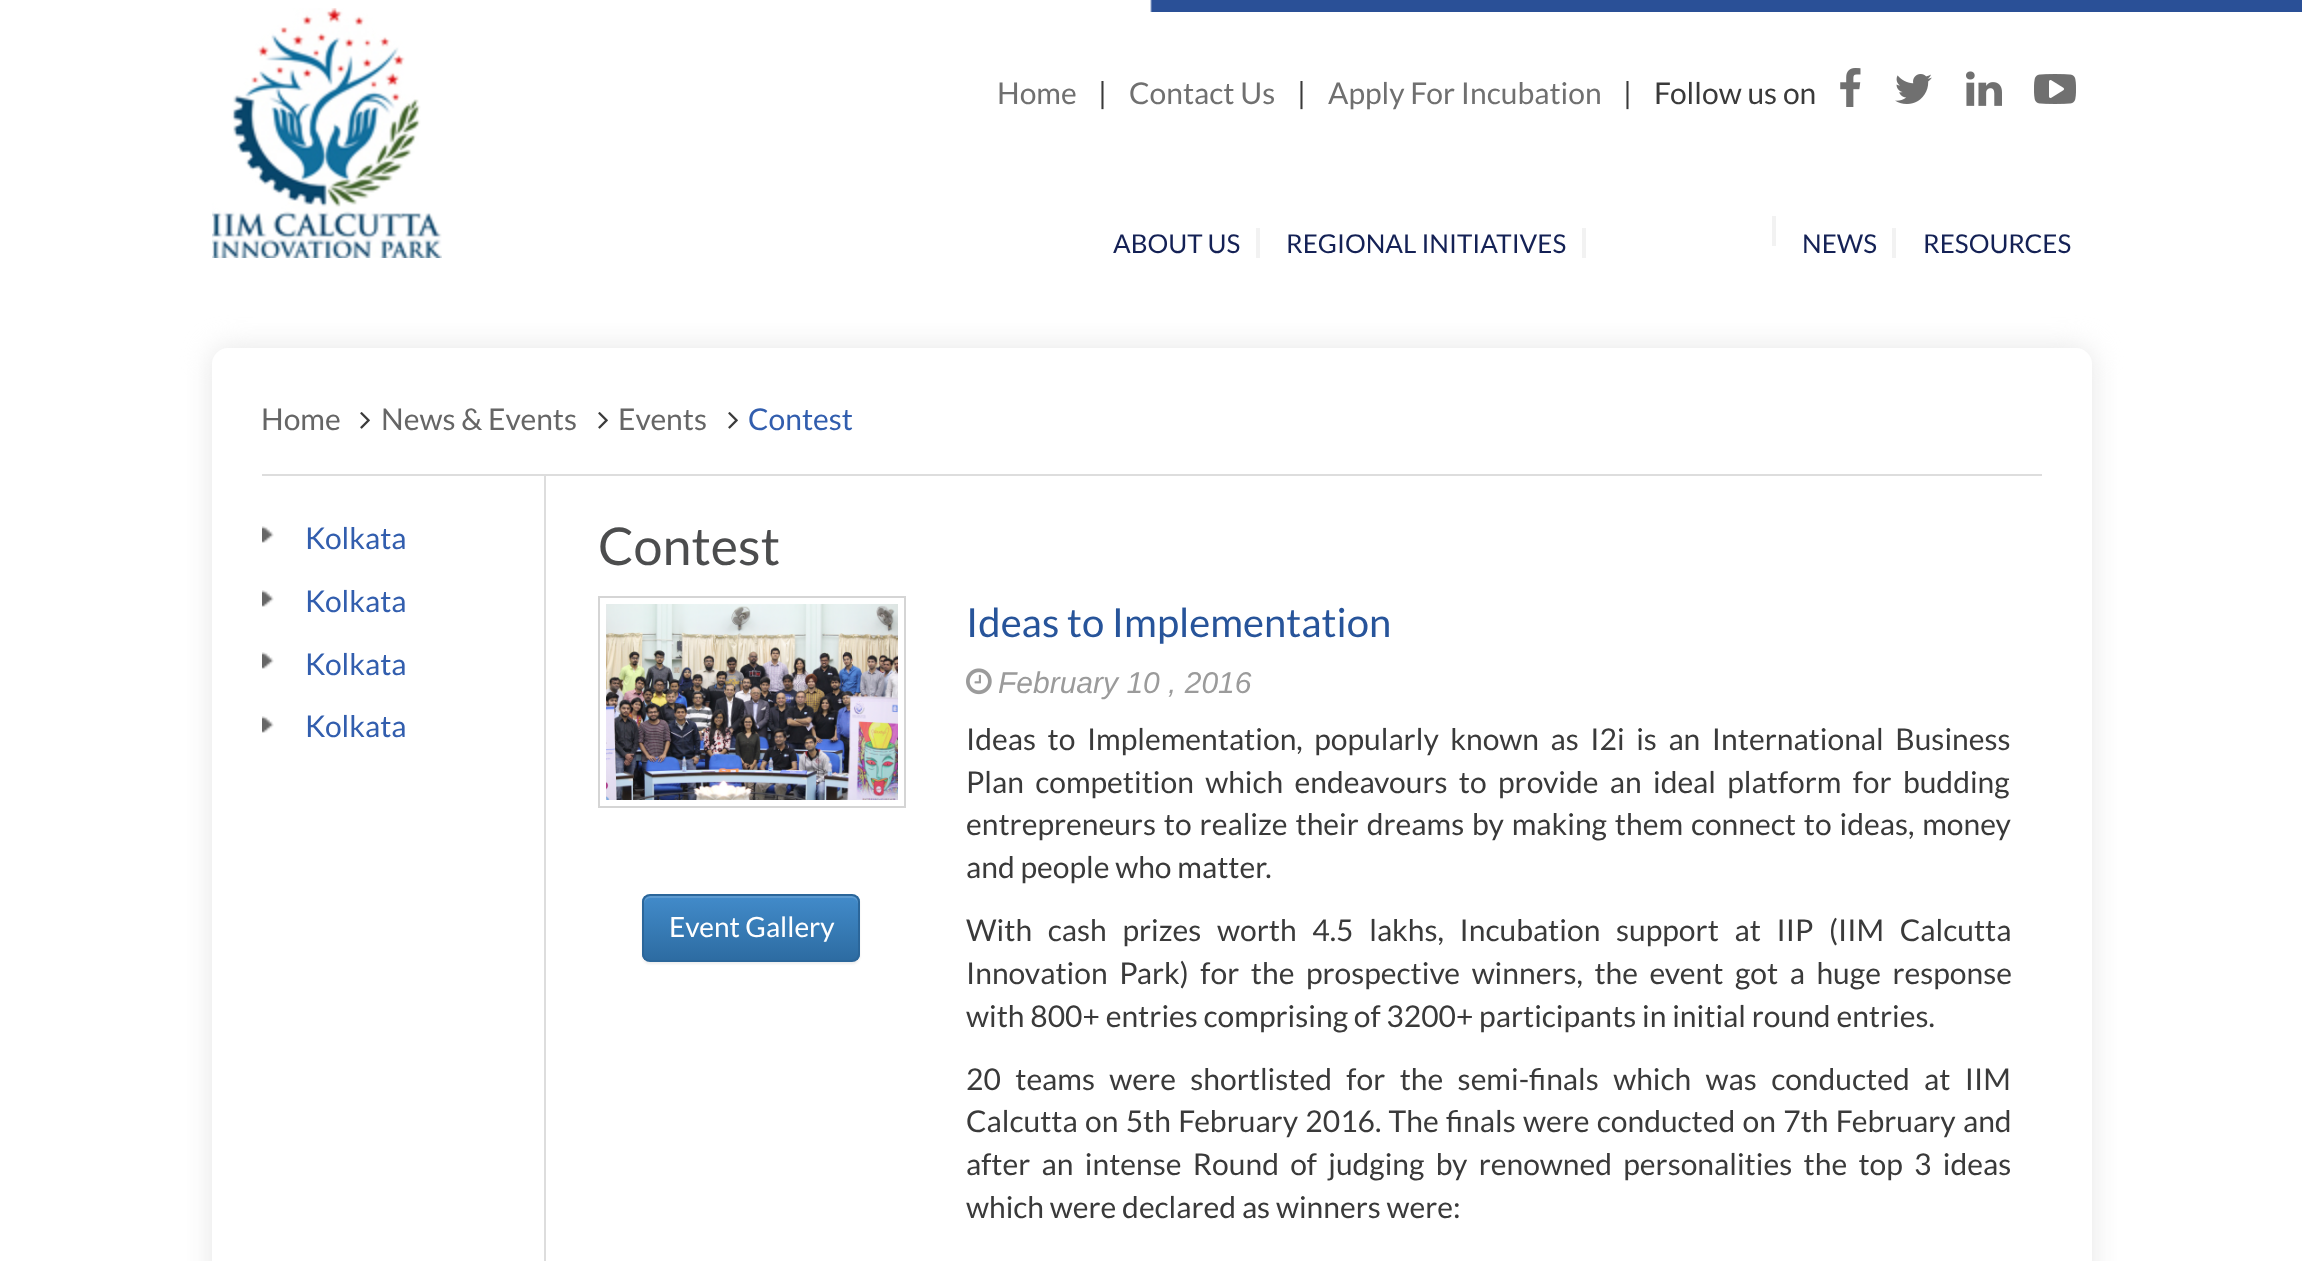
(async () => {
    const canvas = document.querySelector("canvas");
    canvas.width = 2302;
    canvas.height = 1261;
    const context = canvas.getContext("2d");
    context.miterLimit = 4;
    context.fontKerning = "normal";
    function write(s, x, y, font, color) {
        context.font = font;
        context.fillStyle = color;
        context.fillText(s, x, y);
    }
    function block(x, y, w, h, color) {
        context.fillStyle = color;
        context.fillRect(x, y, w, h);
    }
    function card(x, y, w, h, r, color) {
        context.fillStyle = color;
        context.beginPath();
        context.roundRect(x, y, w, h, r);
        context.fill();
    }
    async function photo(src, x, y, w, h) {
        const img = new Image();
        img.src = src;
        await img.decode();
        context.drawImage(img, x, y, w, h);
    }
    let gradient;

    block(0, 0, 2302, 1261, "rgb(255, 255, 255)");
    await photo("media/1.png", 1150, 0, 1152, 12);
    await photo("media/2.png", 212, 8, 230, 250);
    write("Home", 997, 104, "30px Lato", "rgb(112, 112, 112)");
    write("|", 1098, 104, "30px Lato", "rgb(58, 58, 58)");
    write("Contact Us", 1129, 104, "30px Lato", "rgb(112, 112, 112)");
    write("|", 1297, 104, "30px Lato", "rgb(58, 58, 58)");
    write("Apply For Incubation", 1328, 104, "30px Lato", "rgb(112, 112, 112)");
    write("|", 1623, 104, "30px Lato", "rgb(58, 58, 58)");
    write("Follow us on", 1654, 104, "30px Lato", "rgb(58, 58, 58)");
    await photo("media/3.png", 1840, 68, 21, 39);
    await photo("media/4.png", 1895, 74, 37, 30);
    await photo("media/5.png", 1966, 71, 36, 35);
    await photo("media/6.png", 2034, 74, 42, 30);
    block(1256, 228, 4, 30, "rgb(242, 242, 242)");
    write("ABOUT US", 1113, 253, "26px Lato", "rgb(20, 33, 85)");
    block(1582, 228, 4, 30, "rgb(242, 242, 242)");
    write("REGIONAL INITIATIVES", 1286, 253, "26px Lato", "rgb(20, 33, 85)");
    block(1772, 216, 4, 30, "rgb(242, 242, 242)");
    block(1892, 228, 4, 30, "rgb(242, 242, 242)");
    write("NEWS", 1802, 253, "26px Lato", "rgb(20, 33, 85)");
    write("RESOURCES", 1923, 253, "26px Lato", "rgb(20, 33, 85)");
    context.fillStyle = "rgb(229, 229, 229)";
    context.filter = "blur(14px)";
    context.beginPath();
    context.roundRect(212, 348, 1880, 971, 16);
    context.fill();
    context.filter = "none";
    card(212, 348, 1880, 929, 16, "rgb(255, 255, 255)");
    block(262, 474, 1780, 2, "rgb(221, 221, 221)");
    write("Home", 261, 430, "30px Lato", "rgb(102, 102, 102)");
    await photo("media/7.png", 360, 412, 10, 17);
    write("News & Events", 381, 430, "30px Lato", "rgb(102, 102, 102)");
    await photo("media/7.png", 598, 412, 10, 17);
    write("Events", 618, 430, "30px Lato", "rgb(102, 102, 102)");
    await photo("media/7.png", 728, 412, 10, 17);
    write("Contest", 748, 430, "30px Lato", "rgb(50, 94, 174)");
    await photo("media/8.png", 262, 526, 12, 17);
    write("Kolkata", 305, 549, "30px Lato", "rgb(50, 94, 174)");
    await photo("media/8.png", 262, 590, 12, 17);
    write("Kolkata", 305, 612, "30px Lato", "rgb(50, 94, 174)");
    await photo("media/8.png", 262, 652, 12, 17);
    write("Kolkata", 305, 675, "30px Lato", "rgb(50, 94, 174)");
    await photo("media/8.png", 262, 716, 12, 17);
    write("Kolkata", 305, 737, "30px Lato", "rgb(50, 94, 174)");
    block(544, 476, 2, 785, "rgb(221, 221, 221)");
    write("Contest", 598, 565, "52px Lato", "rgb(76, 77, 78)");
    context.strokeStyle = "rgb(213, 213, 213)";
    context.lineWidth = 2;
    context.strokeRect(599, 597, 306, 210);
    await photo("media/9.png", 606, 604, 292, 196);
    context.fillStyle = "rgba(0, 0, 0, 0.07)";
    context.filter = "blur(1px)";
    context.beginPath();
    context.roundRect(642, 896, 218, 68, 8);
    context.fill();
    context.filter = "none";
    context.save();
    context.beginPath();
    context.roundRect(642, 894, 218, 68, 8);
    context.clip();
    gradient = context.createLinearGradient(751, 896, 751, 960);
    gradient.addColorStop(0, "rgb(66, 139, 202)");
    gradient.addColorStop(1, "rgb(45, 108, 162)");
    context.fillStyle = gradient;
    context.fillRect(642, 896, 218, 64);
    context.restore();
    context.fillStyle = "rgba(255, 255, 255, 0.15)";
    context.beginPath();
    context.moveTo(650, 898);
    context.lineTo(852, 898);
    context.bezierCurveTo(855, 898, 858, 901, 858, 904);
    context.lineTo(858, 902);
    context.bezierCurveTo(858, 899, 855, 896, 852, 896);
    context.lineTo(650, 896);
    context.bezierCurveTo(647, 896, 644, 899, 644, 902);
    context.lineTo(644, 904);
    context.bezierCurveTo(644, 901, 647, 898, 650, 898);
    context.closePath();
    context.fill();
    context.beginPath();
    context.roundRect(643, 895, 216, 66, 7);
    context.strokeStyle = "rgb(43, 102, 154)";
    context.stroke();
    write("Event Gallery", 669, 937, "28px Lato", "rgb(255, 255, 255)");
    write("Ideas to Implementation", 966, 637, "40px Lato", "rgb(39, 84, 154)");
    await photo("media/10.png", 966, 668, 26, 27);
    write("February 10 , 2016", 998, 693, "italic 30px Liberation Sans", "rgb(155, 155, 155)");
    context.wordSpacing = "5.75px";
    write("Ideas to Implementation, popularly known as I2i is an International Business", 966, 750, "30px Lato", "rgb(58, 58, 58)");
    context.wordSpacing = "5.5px";
    write("Plan competition which endeavours to provide an ideal platform for budding", 966, 793, "30px Lato", "rgb(58, 58, 58)");
    context.wordSpacing = "2.1px";
    write("entrepreneurs to realize their dreams by making them connect to ideas, money", 966, 835, "30px Lato", "rgb(58, 58, 58)");
    context.wordSpacing = "0px";
    write("and people who matter.", 966, 878, "30px Lato", "rgb(58, 58, 58)");
    context.wordSpacing = "9.9px";
    write("With cash prizes worth 4.5 lakhs, Incubation support at IIP (IIM Calcutta", 966, 941, "30px Lato", "rgb(58, 58, 58)");
    context.wordSpacing = "5.75px";
    write("Innovation Park) for the prospective winners, the event got a huge response", 966, 984, "30px Lato", "rgb(58, 58, 58)");
    context.wordSpacing = "0px";
    write("with 800+ entries comprising of 3200+ participants in initial round entries.", 966, 1027, "30px Lato", "rgb(58, 58, 58)");
    context.wordSpacing = "8.6px";
    write("20 teams were shortlisted for the semi-finals which was conducted at IIM", 966, 1090, "30px Lato", "rgb(58, 58, 58)");
    context.wordSpacing = "1.5px";
    write("Calcutta on 5th February 2016. The finals were conducted on 7th February and", 966, 1132, "30px Lato", "rgb(58, 58, 58)");
    context.wordSpacing = "5.5px";
    write("after an intense Round of judging by renowned personalities the top 3 ideas", 966, 1175, "30px Lato", "rgb(58, 58, 58)");
    context.wordSpacing = "0px";
    write("which were declared as winners were:", 966, 1218, "30px Lato", "rgb(58, 58, 58)");
})();
